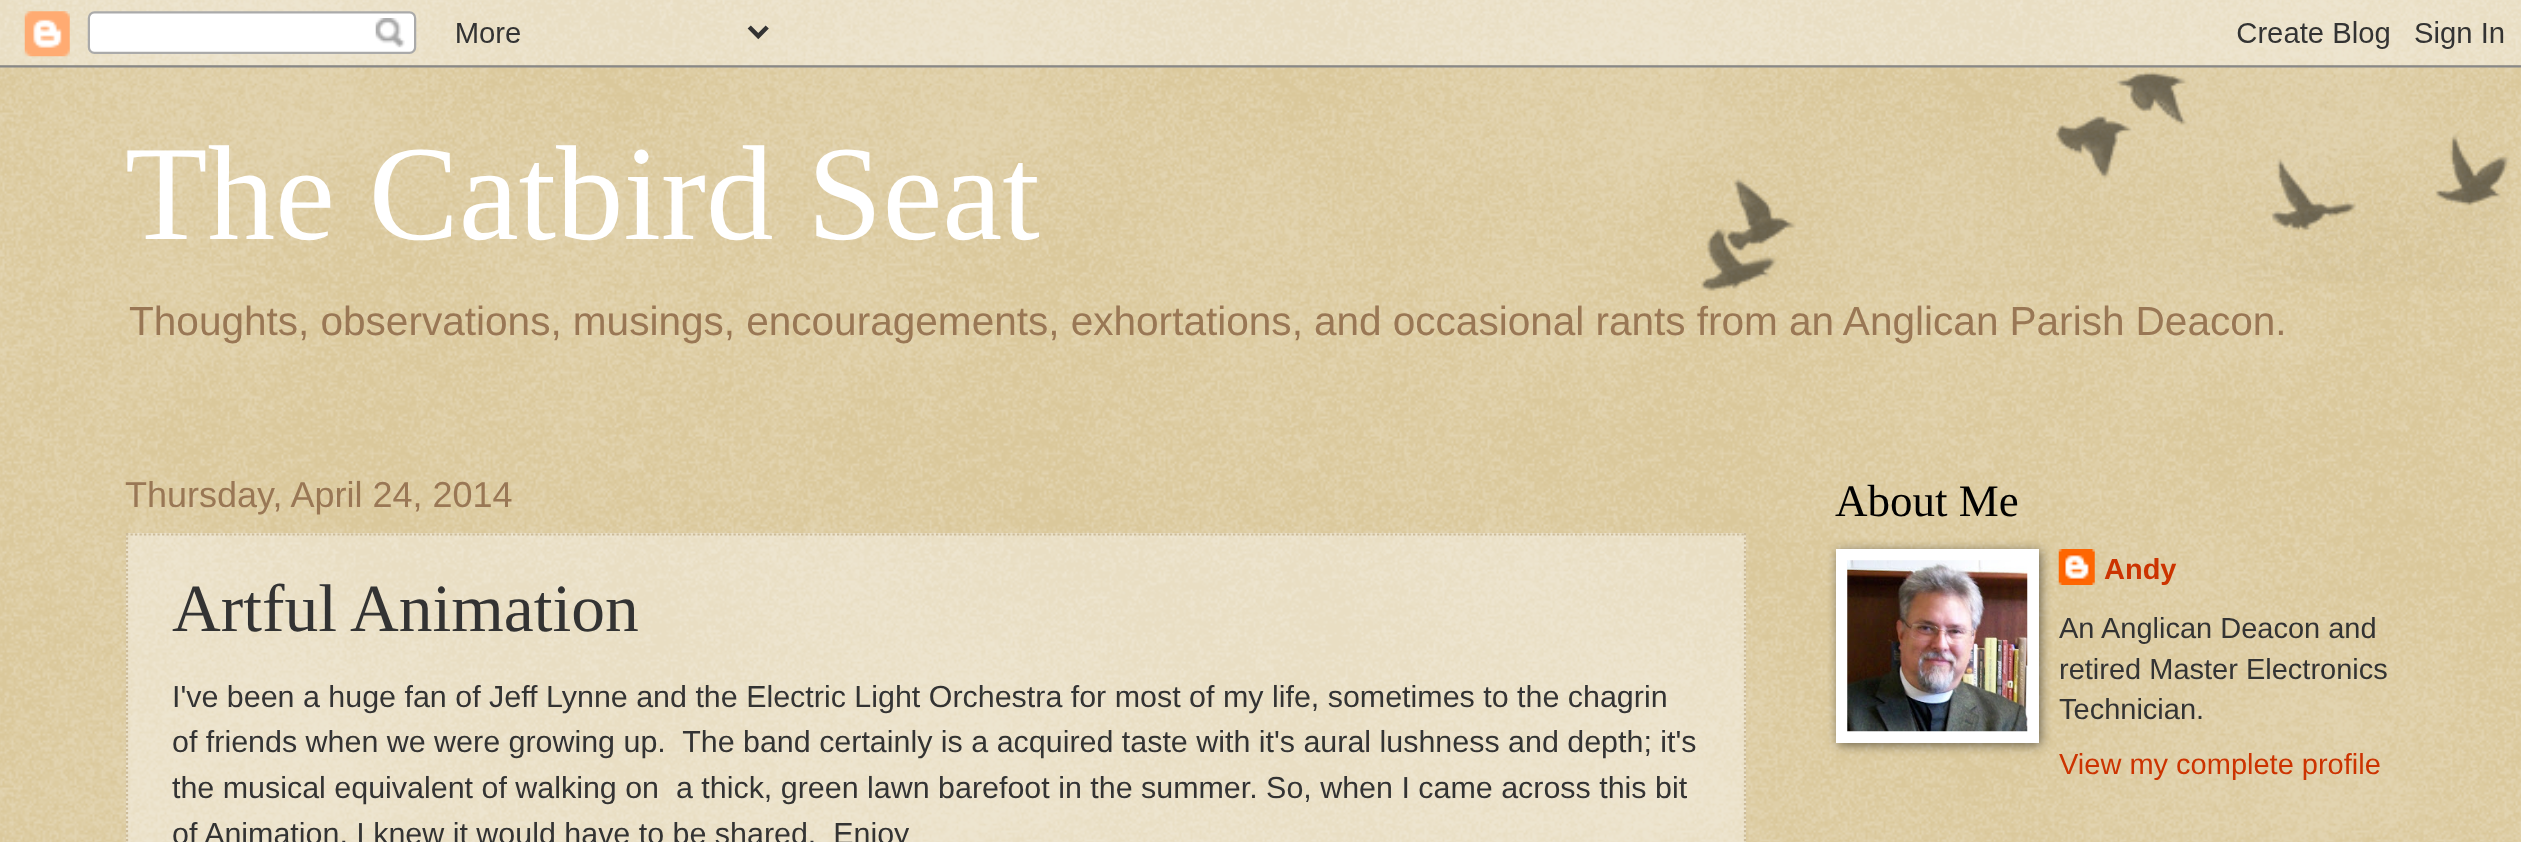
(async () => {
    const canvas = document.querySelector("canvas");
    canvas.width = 2521;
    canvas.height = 842;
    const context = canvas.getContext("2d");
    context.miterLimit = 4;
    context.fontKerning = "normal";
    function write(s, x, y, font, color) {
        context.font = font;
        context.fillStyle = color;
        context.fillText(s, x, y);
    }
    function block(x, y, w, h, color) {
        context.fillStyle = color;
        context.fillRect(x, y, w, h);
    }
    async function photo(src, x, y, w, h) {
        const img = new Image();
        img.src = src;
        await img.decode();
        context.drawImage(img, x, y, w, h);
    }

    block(0, 0, 2521, 842, "rgb(192, 161, 84)");
    await photo("media/1.png", 0, 0, 2521, 842);
    await photo("media/2.png", 0, 0, 2521, 68);
    await photo("media/3.png", 1701, 72, 809, 219);
    write("The Catbird Seat", 125, 239, "135px Liberation Serif", "rgb(255, 255, 255)");
    context.wordSpacing = "-0.2px";
    write("Thoughts, observations, musings, encouragements, exhortations, and occasional rants from an Anglican Parish Deacon.", 129, 335, "40.57px Liberation Sans", "rgb(153, 119, 85)");
    context.wordSpacing = "0px";
    write("Thursday, April 24, 2014", 125, 507, "36px Liberation Sans", "rgb(153, 119, 85)");
    block(126, 533, 1620, 309, "rgba(255, 255, 255, 0.4)");
    context.beginPath();
    context.moveTo(126, 534.5);
    context.lineTo(1746, 534.5);
    context.strokeStyle = "rgb(204, 187, 153)";
    context.lineWidth = 2.2;
    context.setLineDash([2.25, 2.25]);
    context.stroke();
    context.beginPath();
    context.moveTo(1745, 533);
    context.lineTo(1745, 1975.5);
    context.stroke();
    context.beginPath();
    context.moveTo(127, 533);
    context.lineTo(127, 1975.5);
    context.stroke();
    write("Artful Animation", 172, 631, "67.5px Liberation Serif", "rgb(51, 51, 51)");
    write("I've been a huge fan of Jeff Lynne and the Electric Light Orchestra for most of my life, sometimes to the chagrin", 172, 707, "30.43px Liberation Sans", "rgb(51, 51, 51)");
    write("of friends when we were growing up.  The band certainly is a acquired taste with it's aural lushness and depth; it's", 172, 752, "30.43px Liberation Sans", "rgb(51, 51, 51)");
    write("the musical equivalent of walking on  a thick, green lawn barefoot in the summer. So, when I came across this bit", 172, 798, "30.43px Liberation Sans", "rgb(51, 51, 51)");
    write("of Animation, I knew it would have to be shared.  Enjoy", 172, 844, "30.43px Liberation Sans", "rgb(51, 51, 51)");
    write("About Me", 1835, 516, "45px Liberation Serif", "rgb(0, 0, 0)");
    await photo("media/5.png", 2058, 549, 37, 36);
    context.fillStyle = "rgba(0, 0, 0, 0.5)";
    context.filter = "blur(5.5px)";
    context.beginPath();
    context.rect(1838, 551, 203, 194);
    context.fill();
    context.filter = "none";
    block(1836, 549, 203, 194, "rgb(255, 255, 255)");
    await photo("media/4.png", 1847, 560, 181, 172);
    write("Andy", 2104, 579, "bold 29px Liberation Sans", "rgb(204, 51, 0)");
    write("An Anglican Deacon and", 2059, 638, "29px Liberation Sans", "rgb(51, 51, 51)");
    write("retired Master Electronics", 2059, 679, "29px Liberation Sans", "rgb(51, 51, 51)");
    write("Technician.", 2059, 719, "29px Liberation Sans", "rgb(51, 51, 51)");
    write("View my complete profile", 2059, 774, "29px Liberation Sans", "rgb(204, 51, 0)");
})();
